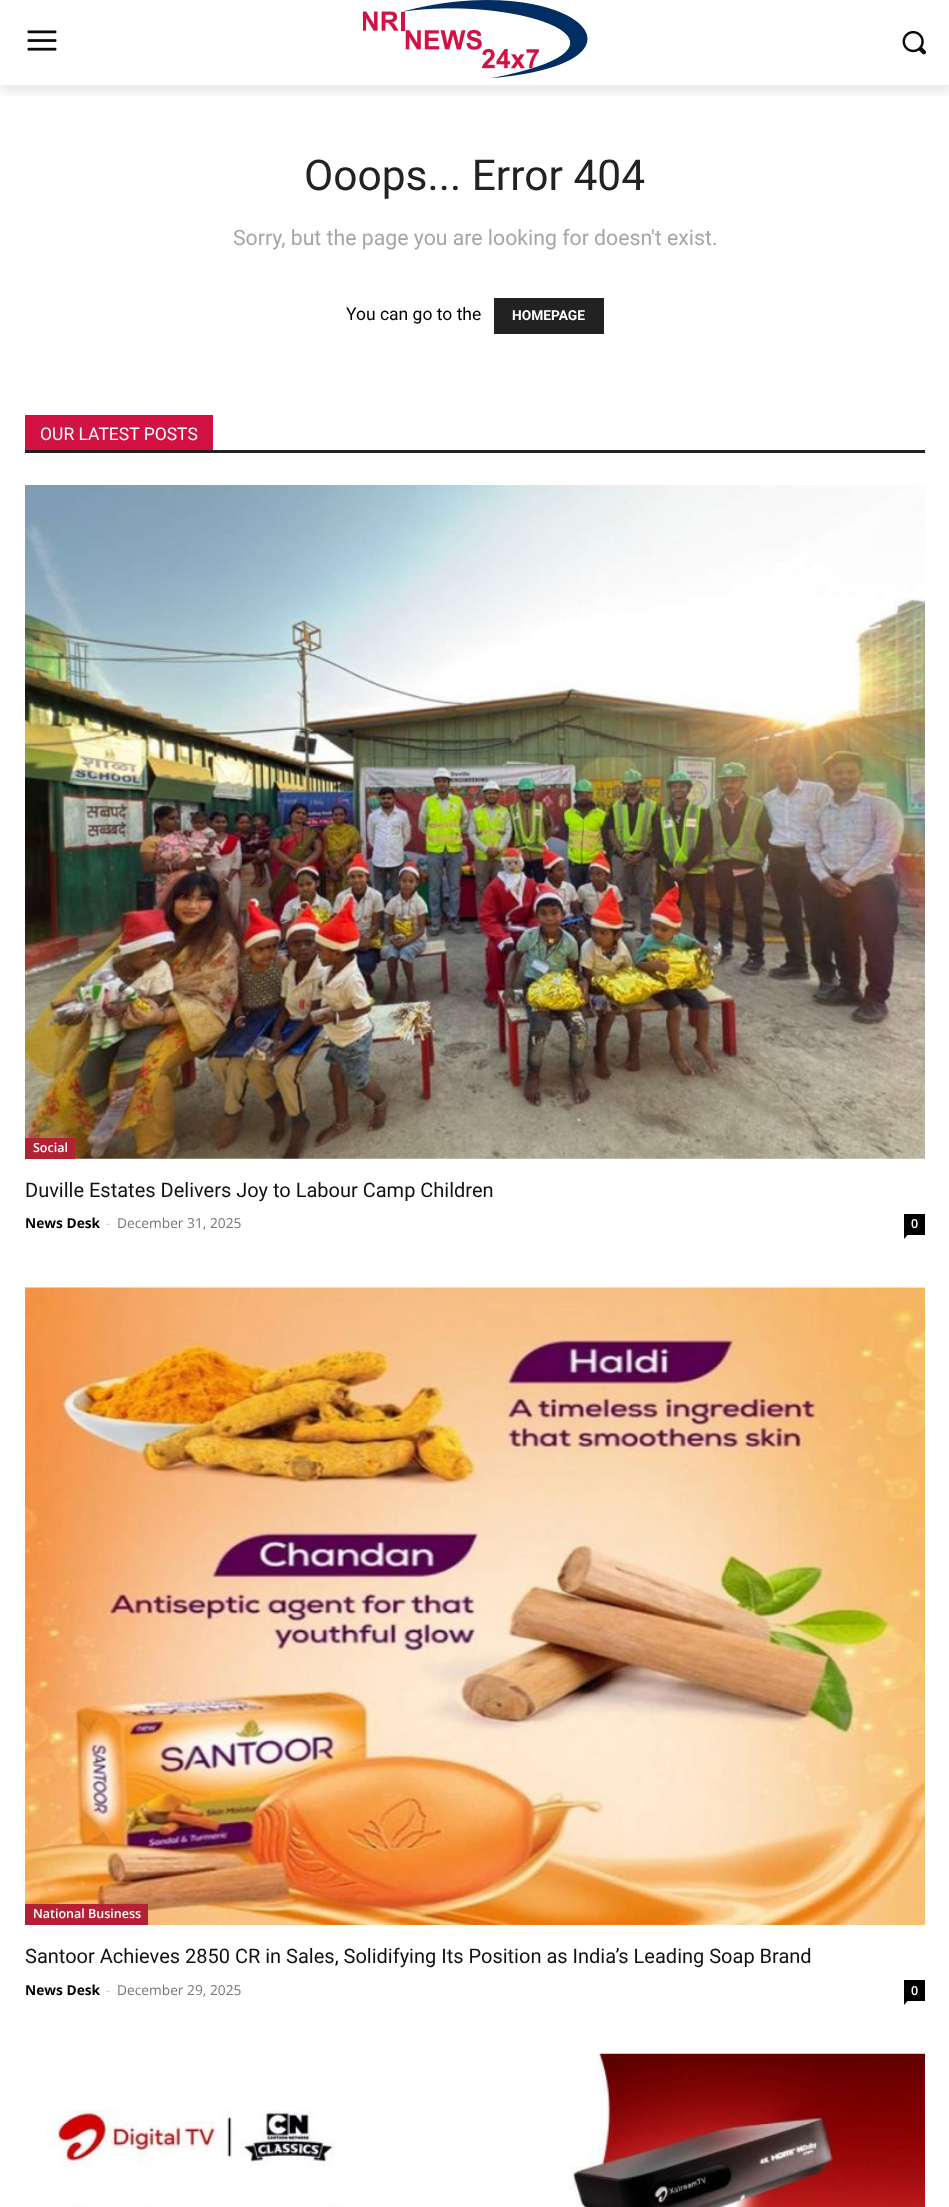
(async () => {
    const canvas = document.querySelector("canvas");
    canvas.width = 949;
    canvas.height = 2207;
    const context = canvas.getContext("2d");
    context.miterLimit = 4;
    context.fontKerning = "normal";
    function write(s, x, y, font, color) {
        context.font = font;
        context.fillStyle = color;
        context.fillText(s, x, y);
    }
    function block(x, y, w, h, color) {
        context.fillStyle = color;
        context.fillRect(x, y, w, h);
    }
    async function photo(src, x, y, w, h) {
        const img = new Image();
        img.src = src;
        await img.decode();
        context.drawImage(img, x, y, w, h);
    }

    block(0, 0, 949, 2207, "rgb(255, 255, 255)");
    await photo("media/1.png", 27, 30, 30, 21);
    await photo("media/2.png", 363, 0, 225, 79);
    await photo("media/3.png", 902, 30, 24, 25);
    context.save();
    context.beginPath();
    context.rect(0, 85, 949, 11);
    context.clip();
    context.fillStyle = "rgba(0, 0, 0, 0.08)";
    context.filter = "blur(5px)";
    context.beginPath();
    context.rect(0, 8, 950, 85);
    context.fill();
    context.filter = "none";
    context.restore();
    write("Ooops... Error 404", 304, 190, "42.5px Roboto", "rgb(34, 34, 34)");
    write("Sorry, but the page you are looking for doesn't exist.", 233, 245, "21.25px Roboto", "rgb(166, 166, 166)");
    write("You can go to the", 346, 320, "17.5px Roboto", "rgb(0, 0, 0)");
    block(494, 298, 110, 36, "rgb(34, 34, 34)");
    write("HOMEPAGE", 512, 320, "bold 13.75px Roboto", "rgb(255, 255, 255)");
    block(25, 450, 900, 3, "rgb(34, 34, 34)");
    block(25, 415, 188, 35, "rgb(210, 18, 66)");
    write("OUR LATEST POSTS", 40, 440, "17.5px Roboto", "rgb(255, 255, 255)");
    await photo("media/4.png", 25, 485, 900, 674);
    block(25, 1138, 50, 21, "rgb(178, 34, 52)");
    write("Social", 33, 1152, "600 12.5px Open Sans", "rgb(255, 255, 255)");
    write("Duville Estates Delivers Joy to Labour Camp Children", 25, 1197, "20px Roboto", "rgb(17, 17, 17)");
    write("News Desk", 25, 1228, "bold 13.75px Open Sans", "rgb(0, 0, 0)");
    write("-", 106, 1228, "13.75px Open Sans", "rgb(204, 204, 204)");
    write("December 31, 2025", 117, 1228, "13.75px Open Sans", "rgb(118, 118, 118)");
    block(904, 1214, 21, 21, "rgb(0, 0, 0)");
    write("0", 911, 1228, "600 12.5px Open Sans", "rgb(255, 255, 255)");
    context.fillStyle = "rgb(0, 0, 0)";
    context.beginPath();
    context.moveTo(904, 1235);
    context.lineTo(907.5, 1235);
    context.lineTo(904, 1239);
    context.closePath();
    context.fill();
    await photo("media/5.png", 25, 1287, 900, 638);
    block(25, 1904, 123, 21, "rgb(178, 34, 52)");
    write("National Business", 33, 1918, "600 12.5px Open Sans", "rgb(255, 255, 255)");
    write("Santoor Achieves 2850 CR in Sales, Solidifying Its Position as India’s Leading Soap Brand", 25, 1963, "20px Roboto", "rgb(17, 17, 17)");
    write("News Desk", 25, 1995, "bold 13.75px Open Sans", "rgb(0, 0, 0)");
    write("-", 106, 1995, "13.75px Open Sans", "rgb(204, 204, 204)");
    write("December 29, 2025", 117, 1995, "13.75px Open Sans", "rgb(118, 118, 118)");
    block(904, 1980, 21, 21, "rgb(0, 0, 0)");
    write("0", 911, 1995, "600 12.5px Open Sans", "rgb(255, 255, 255)");
    context.fillStyle = "rgb(0, 0, 0)";
    context.beginPath();
    context.moveTo(904, 2001);
    context.lineTo(907.5, 2001);
    context.lineTo(904, 2005);
    context.closePath();
    context.fill();
    await photo("media/6.png", 46, 2053, 879, 154);
})();
